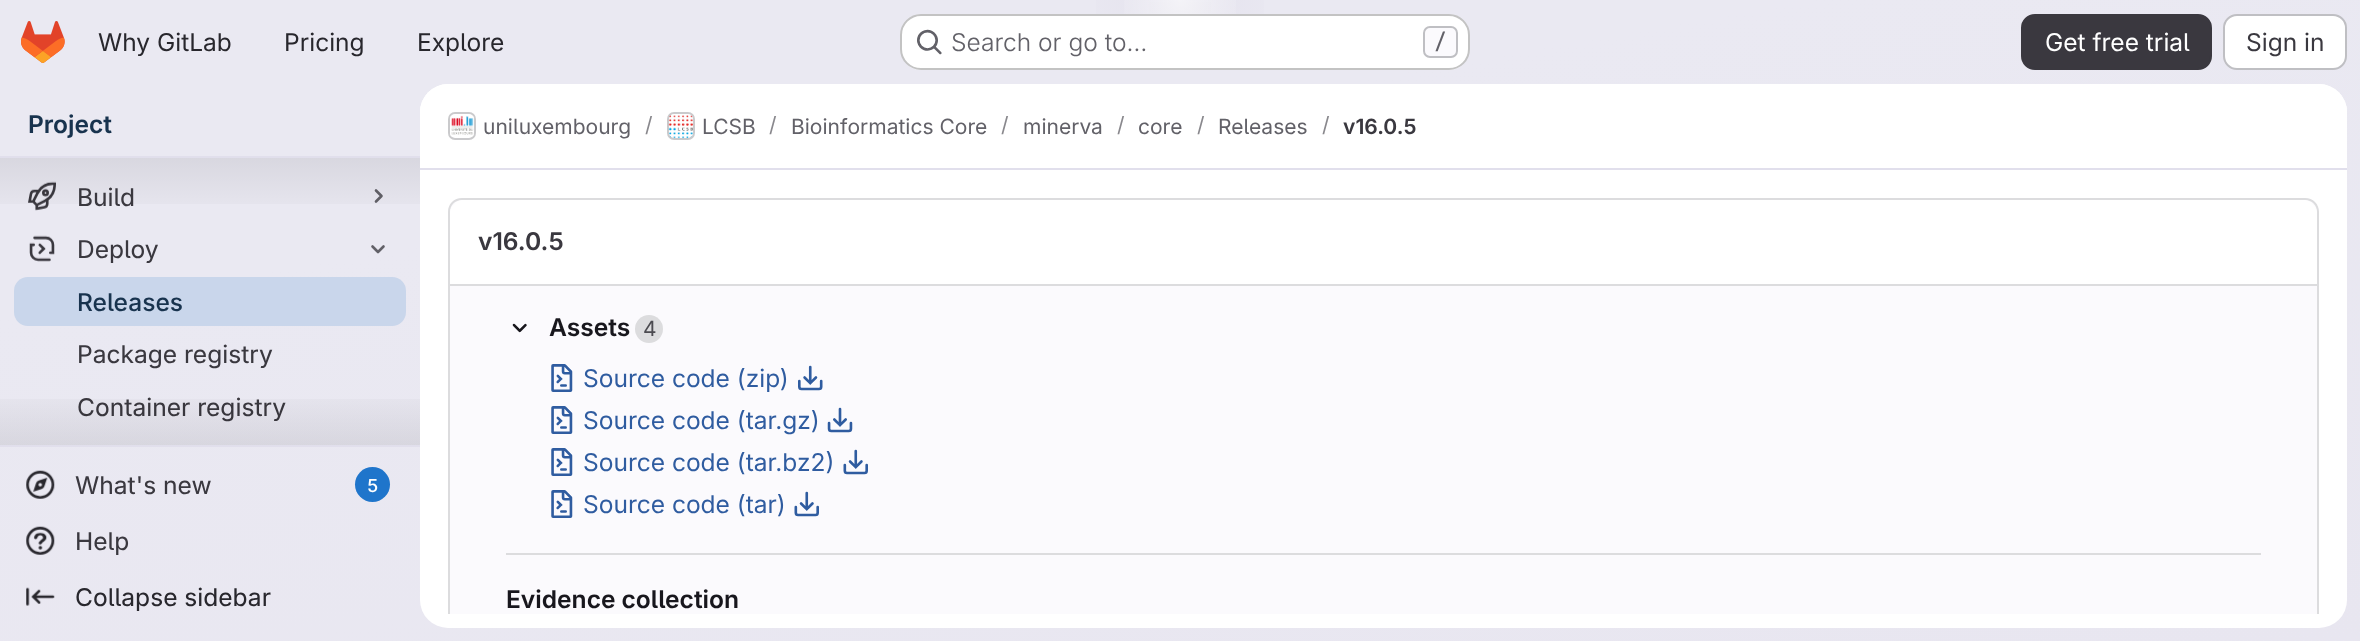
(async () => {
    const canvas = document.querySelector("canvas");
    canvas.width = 2360;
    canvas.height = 641;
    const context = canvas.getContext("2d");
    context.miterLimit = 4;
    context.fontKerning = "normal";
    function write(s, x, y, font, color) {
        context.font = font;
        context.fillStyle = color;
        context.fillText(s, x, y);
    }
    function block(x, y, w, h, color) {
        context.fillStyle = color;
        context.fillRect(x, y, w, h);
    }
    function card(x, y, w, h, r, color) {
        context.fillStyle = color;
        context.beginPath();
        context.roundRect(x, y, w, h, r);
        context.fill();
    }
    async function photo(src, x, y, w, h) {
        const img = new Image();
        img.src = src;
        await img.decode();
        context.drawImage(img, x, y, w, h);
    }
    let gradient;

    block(0, 0, 2360, 641, "rgb(255, 255, 255)");
    gradient = context.createLinearGradient(1271, 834, 1090, -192);
    gradient.addColorStop(0, "rgb(232, 230, 240)");
    gradient.addColorStop(0.7, "rgb(234, 233, 242)");
    context.fillStyle = gradient;
    context.fillRect(0, 0, 2360, 641);
    gradient = context.createRadialGradient(1180, 0, 0, 1180, 0, 1180);
    gradient.addColorStop(0, "rgb(228, 226, 237)");
    gradient.addColorStop(0.1, "rgba(228, 226, 237, 0)");
    context.fillStyle = gradient;
    context.beginPath();
    context.rect(1096, 0, 168, 14);
    context.save();
    context.clip();
    context.scale(1, 642 / 1180);
    context.fillRect(0, 0, 2360, 1179);
    context.restore();
    gradient = context.createRadialGradient(1180, 0, 0, 1180, 0, 1180);
    gradient.addColorStop(0, "rgb(228, 226, 236)");
    gradient.addColorStop(0.07, "rgba(228, 226, 236, 0)");
    context.fillStyle = gradient;
    context.beginPath();
    context.rect(1149, 2, 62, 11);
    context.save();
    context.clip();
    context.scale(1, 642 / 1180);
    context.fillRect(0, 0, 2360, 1179);
    context.restore();
    gradient = context.createRadialGradient(1180, 0, 0, 1180, 0, 1344);
    gradient.addColorStop(0, "rgba(255, 255, 255, 0.6)");
    gradient.addColorStop(0.05, "rgba(255, 255, 255, 0)");
    context.fillStyle = gradient;
    context.fillRect(1124, 0, 112, 14);
    await photo("media/1.png", 21, 21, 44, 42);
    write("Why GitLab", 98, 51, "24.5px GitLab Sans", "rgb(40, 39, 45)");
    write("Pricing", 284, 51, "24.5px GitLab Sans", "rgb(40, 39, 45)");
    write("Explore", 417, 51, "24.5px GitLab Sans", "rgb(40, 39, 45)");
    card(900, 14, 570, 56, 21, "rgb(255, 255, 255)");
    context.beginPath();
    context.roundRect(901, 15, 568, 54, 20);
    context.strokeStyle = "rgba(5, 5, 6, 0.24)";
    context.lineWidth = 2;
    context.stroke();
    await photo("media/2.png", 917, 29, 25, 26);
    write("Search or go to…", 951, 51, "300 24.5px GitLab Sans", "rgb(98, 97, 104)");
    context.fillStyle = "rgb(251, 250, 253)";
    context.beginPath();
    context.roundRect(1424, 27, 33, 30, 6);
    context.fill();
    context.strokeStyle = "rgb(191, 191, 195)";
    context.stroke();
    write("/", 1434, 49, "500 21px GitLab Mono", "rgb(98, 97, 104)");
    context.fillStyle = "rgb(58, 56, 63)";
    context.beginPath();
    context.roundRect(2022, 15, 189, 54, 13);
    context.fill();
    context.strokeStyle = "rgb(58, 56, 63)";
    context.stroke();
    write("Get free trial", 2045, 51, "24.5px GitLab Sans", "rgb(255, 255, 255)");
    context.beginPath();
    context.roundRect(2224, 15, 122, 54, 13);
    context.fill();
    context.strokeStyle = "rgb(191, 191, 195)";
    context.stroke();
    write("Sign in", 2246, 51, "24.5px GitLab Sans", "rgb(58, 56, 63)");
    write("Project", 28, 133, "600 24.5px GitLab Sans", "rgb(24, 51, 78)");
    block(0, 156, 420, 2, "rgb(225, 223, 236)");
    block(0, 445, 420, 2, "rgb(225, 223, 236)");
    await photo("media/3.png", 28, 181, 28, 30);
    context.beginPath();
    context.moveTo(376, 190.5);
    context.lineTo(381.5, 196);
    context.lineTo(376, 201.5);
    context.strokeStyle = "rgb(98, 97, 104)";
    context.lineWidth = 2.6;
    context.lineCap = "round";
    context.lineJoin = "round";
    context.stroke();
    gradient = context.createLinearGradient(210, 157, 210, 221);
    gradient.addColorStop(0, "rgba(5, 5, 6, 0.08)");
    gradient.addColorStop(1, "rgba(5, 5, 6, 0)");
    context.fillStyle = gradient;
    context.fillRect(0, 158, 420, 46);
    write("Build", 77, 206, "24.5px 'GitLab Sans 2'", "rgb(58, 56, 63)");
    await photo("media/4.png", 29, 235, 26, 27);
    write("Deploy", 77, 258, "24.5px 'GitLab Sans 2'", "rgb(58, 56, 63)");
    context.beginPath();
    context.moveTo(383.5, 246.5);
    context.lineTo(378, 252);
    context.lineTo(372.5, 246.5);
    context.stroke();
    card(14, 277, 392, 49, 14, "rgb(201, 214, 235)");
    write("Releases", 77, 311, "500 24.5px GitLab Sans", "rgb(24, 51, 78)");
    write("Package registry", 77, 363, "24.5px 'GitLab Sans 2'", "rgb(58, 56, 63)");
    write("Container registry", 77, 416, "24.5px 'GitLab Sans 2'", "rgb(58, 56, 63)");
    gradient = context.createLinearGradient(210, 382, 210, 445);
    gradient.addColorStop(0, "rgba(5, 5, 6, 0)");
    gradient.addColorStop(1, "rgba(5, 5, 6, 0.08)");
    context.fillStyle = gradient;
    context.fillRect(0, 399, 420, 46);
    await photo("media/5.png", 26, 470, 29, 29);
    write("What's new", 75, 494, "24.5px 'GitLab Sans 2'", "rgb(58, 56, 63)");
    context.fillStyle = "rgb(31, 117, 203)";
    context.beginPath();
    context.arc(372.5, 484.5, 17.5, 0, Math.PI * 2);
    context.fill();
    write("5", 367, 492, "500 18px GitLab Sans", "rgb(255, 255, 255)");
    await photo("media/6.png", 26, 526, 29, 29);
    write("Help", 75, 550, "24.5px 'GitLab Sans 2'", "rgb(58, 56, 63)");
    await photo("media/7.png", 26, 587, 29, 19);
    write("Collapse sidebar", 75, 606, "24.5px 'GitLab Sans 2'", "rgb(40, 39, 45)");
    card(420, 84, 1927, 544, 28, "rgb(255, 255, 255)");
    context.beginPath();
    context.roundRect(420, 84, 1927, 86, [28, 28, 0, 0]);
    context.fill();
    block(420, 168, 1927, 2, "rgb(225, 223, 236)");
    context.beginPath();
    context.roundRect(449, 113, 26, 26, 6);
    context.strokeStyle = "rgb(220, 220, 222)";
    context.lineWidth = 2;
    context.lineJoin = "miter";
    context.stroke();
    await photo("media/8.png", 450, 115, 24, 22);
    context.beginPath();
    context.roundRect(449, 113, 26, 26, 6);
    context.strokeStyle = "rgba(5, 5, 6, 0.08)";
    context.stroke();
    write("uniluxembourg", 483, 134, "21px GitLab Sans", "rgb(98, 97, 104)");
    write("/", 645, 132, "21px GitLab Sans", "rgb(137, 136, 141)");
    context.beginPath();
    context.roundRect(668, 113, 26, 26, 6);
    context.strokeStyle = "rgb(220, 220, 222)";
    context.stroke();
    await photo("media/9.png", 668, 115, 25, 24);
    context.beginPath();
    context.roundRect(668, 113, 26, 26, 6);
    context.strokeStyle = "rgba(5, 5, 6, 0.08)";
    context.stroke();
    write("LCSB", 702, 134, "21px GitLab Sans", "rgb(98, 97, 104)");
    write("/", 769, 132, "21px GitLab Sans", "rgb(137, 136, 141)");
    write("Bioinformatics Core", 791, 134, "21px GitLab Sans", "rgb(98, 97, 104)");
    write("/", 1001, 132, "21px GitLab Sans", "rgb(137, 136, 141)");
    write("minerva", 1023, 134, "21px GitLab Sans", "rgb(98, 97, 104)");
    write("/", 1117, 132, "21px GitLab Sans", "rgb(137, 136, 141)");
    write("core", 1138, 134, "21px GitLab Sans", "rgb(98, 97, 104)");
    write("/", 1197, 132, "21px GitLab Sans", "rgb(137, 136, 141)");
    write("Releases", 1218, 134, "21px GitLab Sans", "rgb(98, 97, 104)");
    write("/", 1322, 132, "21px GitLab Sans", "rgb(137, 136, 141)");
    write("v16.0.5", 1343, 134, "600 21px GitLab Sans", "rgb(58, 56, 63)");
    context.fillStyle = "rgb(251, 250, 253)";
    context.beginPath();
    context.roundRect(448, 198, 1871, 416, [14, 14, 0, 0]);
    context.fill();
    context.save();
    context.beginPath();
    context.rect(420, 170, 1927, 444);
    context.clip();
    context.fillStyle = "rgb(220, 220, 222)";
    context.beginPath();
    context.moveTo(462, 198);
    context.bezierCurveTo(454, 198, 448, 204, 448, 212);
    context.lineTo(448, 628);
    context.lineTo(450, 628);
    context.lineTo(450, 212);
    context.bezierCurveTo(450, 205, 455, 200, 462, 200);
    context.lineTo(2305, 200);
    context.bezierCurveTo(2312, 200, 2317, 205, 2317, 212);
    context.lineTo(2317, 628);
    context.lineTo(2319, 628);
    context.lineTo(2319, 212);
    context.bezierCurveTo(2319, 204, 2313, 198, 2305, 198);
    context.closePath();
    context.fill();
    context.restore();
    context.fillStyle = "rgb(255, 255, 255)";
    context.beginPath();
    context.roundRect(450, 200, 1867, 85, [14, 14, 0, 0]);
    context.fill();
    block(450, 284, 1867, 2, "rgb(220, 220, 222)");
    write("v16.0.5", 478, 250, "600 24.5px GitLab Sans", "rgb(58, 56, 63)");
    block(506, 553, 1755, 2, "rgb(220, 220, 222)");
    await photo("media/10.png", 512, 323, 15, 10);
    write("Assets", 549, 336, "600 24.5px GitLab Sans", "rgb(24, 23, 29)");
    context.fillStyle = "rgb(220, 220, 222)";
    context.beginPath();
    context.arc(649, 329, 14, 0, Math.PI * 2);
    context.fill();
    write("4", 643, 336, "21px GitLab Sans", "rgb(76, 75, 81)");
    await photo("media/11.png", 551, 364, 22, 28);
    write("Source code (zip)", 583, 387, "24.5px GitLab Sans", "rgb(47, 92, 160)");
    await photo("media/12.png", 798, 365, 25, 26);
    await photo("media/11.png", 551, 406, 22, 28);
    write("Source code (tar.gz)", 583, 429, "24.5px GitLab Sans", "rgb(47, 92, 160)");
    await photo("media/13.png", 827, 407, 26, 26);
    await photo("media/11.png", 551, 448, 22, 28);
    write("Source code (tar.bz2)", 583, 471, "24.5px GitLab Sans", "rgb(47, 92, 160)");
    await photo("media/14.png", 843, 449, 25, 26);
    await photo("media/15.png", 551, 490, 22, 28);
    write("Source code (tar)", 583, 513, "24.5px GitLab Sans", "rgb(47, 92, 160)");
    await photo("media/16.png", 794, 491, 25, 26);
    write("Evidence collection", 506, 608, "600 24.5px GitLab Sans", "rgb(24, 23, 29)");
})();
